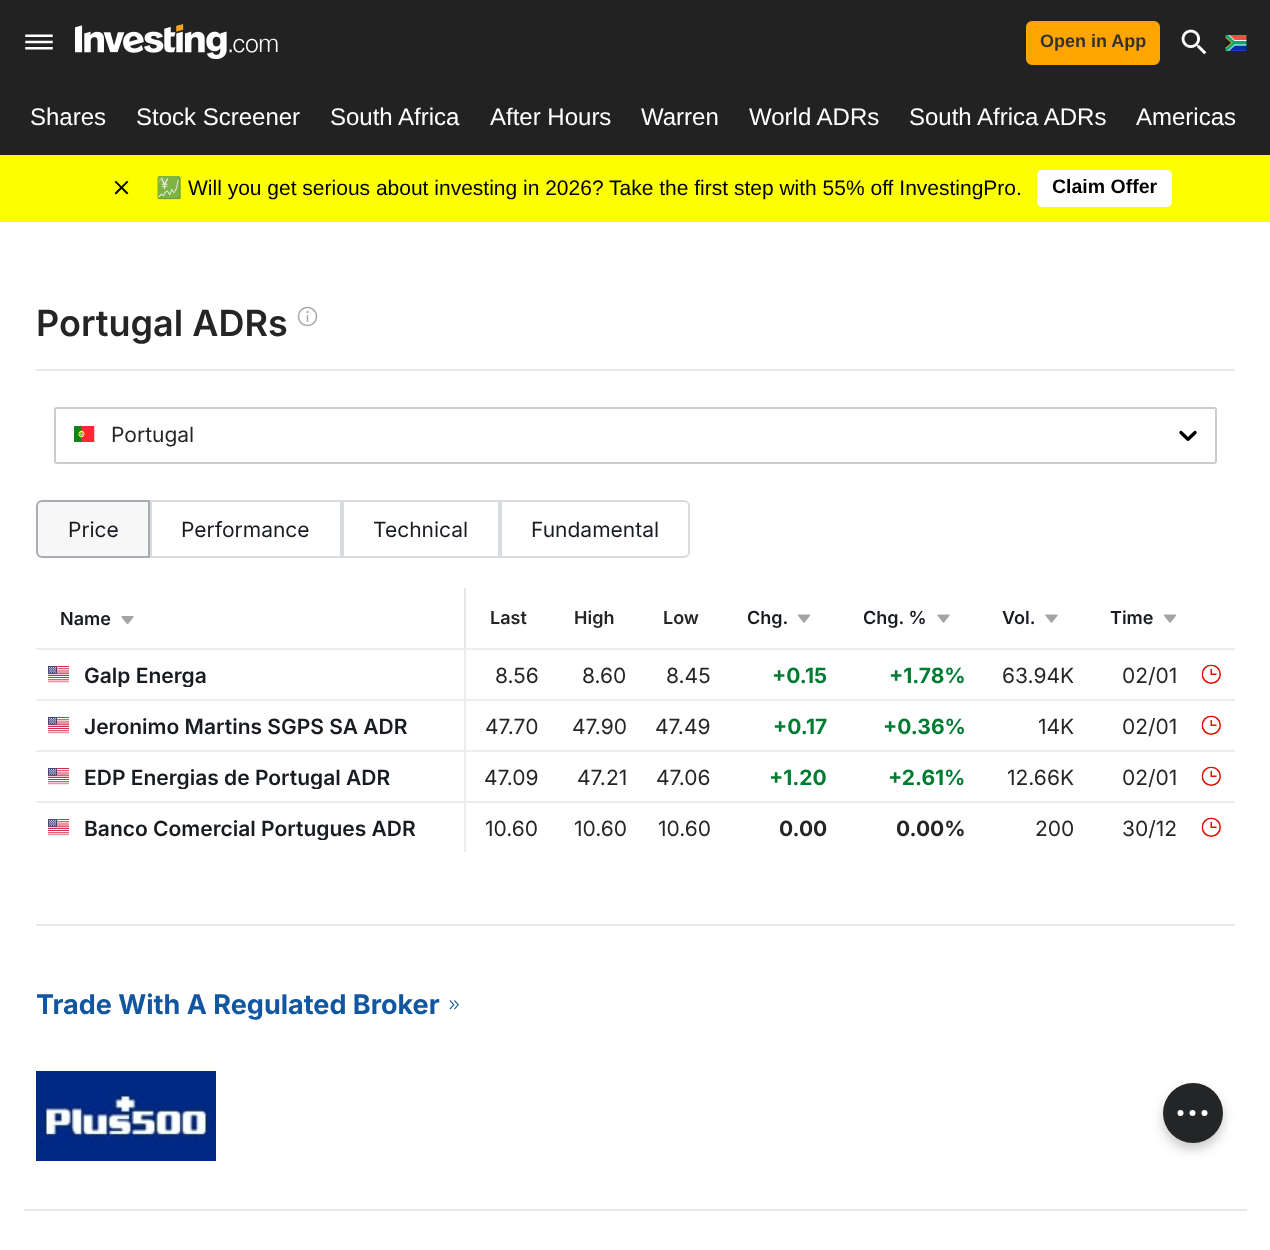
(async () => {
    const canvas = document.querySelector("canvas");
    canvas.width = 1270;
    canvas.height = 1250;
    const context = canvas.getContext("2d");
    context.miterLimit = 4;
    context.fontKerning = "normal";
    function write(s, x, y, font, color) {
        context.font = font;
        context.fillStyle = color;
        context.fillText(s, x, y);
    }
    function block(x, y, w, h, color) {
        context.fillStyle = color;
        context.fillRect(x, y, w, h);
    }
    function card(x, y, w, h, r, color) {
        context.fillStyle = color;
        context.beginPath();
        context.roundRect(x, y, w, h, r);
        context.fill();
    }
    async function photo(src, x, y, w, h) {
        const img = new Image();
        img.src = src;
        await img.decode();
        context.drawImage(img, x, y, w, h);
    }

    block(0, 0, 1270, 1250, "rgb(255, 255, 255)");
    block(0, 0, 1270, 155, "rgb(34, 34, 34)");
    await photo("media/1.png", 25, 34, 28, 16);
    await photo("media/2.png", 75, 24, 203, 36);
    context.fillStyle = "rgb(255, 165, 0)";
    context.beginPath();
    context.roundRect(1027, 22, 132, 42, 5);
    context.fill();
    context.strokeStyle = "rgb(255, 165, 0)";
    context.lineWidth = 2;
    context.stroke();
    write("Open in App", 1040, 47, "bold 18px Liberation Sans", "rgb(51, 51, 51)");
    await photo("media/3.png", 1181, 29, 26, 26);
    await photo("media/4.png", 1225, 35, 22, 16);
    write("Shares", 30, 125, "24px Liberation Sans", "rgb(255, 255, 255)");
    write("Stock Screener", 136, 125, "24px Liberation Sans", "rgb(255, 255, 255)");
    write("South Africa", 330, 125, "24px Liberation Sans", "rgb(255, 255, 255)");
    write("After Hours", 490, 125, "24px Liberation Sans", "rgb(255, 255, 255)");
    write("Warren", 641, 125, "24px Liberation Sans", "rgb(255, 255, 255)");
    write("World ADRs", 749, 125, "24px Liberation Sans", "rgb(255, 255, 255)");
    write("South Africa ADRs", 909, 125, "24px Liberation Sans", "rgb(255, 255, 255)");
    write("Americas", 1136, 125, "24px Liberation Sans", "rgb(255, 255, 255)");
    block(0, 155, 1270, 67, "rgb(251, 255, 0)");
    await photo("media/5.png", 114, 180, 15, 15);
    write("💹", 156, 195, "21px Noto Color Emoji", "rgb(0, 0, 0)");
    write("Will you get serious about investing in 2026? Take the first step with 55% off InvestingPro.", 188, 195, "21px Liberation Sans", "rgb(0, 0, 0)");
    card(1037, 170, 135, 37, 5, "rgb(255, 255, 255)");
    write("Claim Offer", 1052, 193, "bold 19.5px Liberation Sans", "rgb(0, 0, 0)");
    block(36, 369, 1199, 2, "rgb(230, 233, 235)");
    write("Portugal ADRs", 36, 336, "600 36px Inter", "rgb(35, 37, 38)");
    await photo("media/6.png", 297, 306, 21, 21);
    context.beginPath();
    context.roundRect(55, 408, 1161, 55, 2);
    context.strokeStyle = "rgb(204, 204, 204)";
    context.stroke();
    await photo("media/7.png", 74, 426, 21, 16);
    write("Portugal", 111, 442, "21px Inter", "rgb(35, 37, 38)");
    await photo("media/8.png", 1179, 430, 18, 11);
    context.fillStyle = "rgb(247, 247, 248)";
    context.beginPath();
    context.roundRect(37, 501, 112, 56, [5, 0, 0, 5]);
    context.fill();
    context.strokeStyle = "rgb(169, 172, 179)";
    context.stroke();
    write("Price", 68, 537, "21px Inter", "rgb(24, 28, 33)");
    context.strokeStyle = "rgb(217, 220, 223)";
    context.strokeRect(151, 501, 190, 56);
    write("Performance", 181, 537, "21px Inter", "rgb(24, 28, 33)");
    context.strokeRect(343, 501, 156, 56);
    write("Technical", 373, 537, "21px Inter", "rgb(24, 28, 33)");
    context.beginPath();
    context.roundRect(501, 501, 188, 56, [0, 5, 5, 0]);
    context.stroke();
    write("Fundamental", 531, 537, "21px Inter", "rgb(24, 28, 33)");
    block(464, 588, 2, 60, "rgb(229, 231, 235)");
    write("Name", 60, 625, "600 18px Inter", "rgb(24, 28, 33)");
    await photo("media/9.png", 121, 616, 13, 9);
    write("Last", 490, 624, "600 18px Inter", "rgb(35, 37, 38)");
    write("High", 574, 624, "600 18px Inter", "rgb(35, 37, 38)");
    write("Low", 663, 624, "600 18px Inter", "rgb(35, 37, 38)");
    write("Chg.", 747, 624, "600 18px Inter", "rgb(24, 28, 33)");
    await photo("media/10.png", 797, 614, 14, 9);
    write("Chg. %", 863, 624, "600 18px Inter", "rgb(24, 28, 33)");
    await photo("media/11.png", 937, 614, 13, 9);
    write("Vol.", 1002, 624, "600 18px Inter", "rgb(24, 28, 33)");
    await photo("media/11.png", 1045, 614, 13, 9);
    write("Time", 1110, 624, "600 18px Inter", "rgb(24, 28, 33)");
    await photo("media/10.png", 1163, 614, 14, 9);
    block(36, 648, 1199, 2, "rgb(236, 237, 239)");
    block(36, 699, 1199, 2, "rgb(236, 237, 239)");
    block(36, 750, 1199, 2, "rgb(236, 237, 239)");
    block(36, 801, 1199, 2, "rgb(236, 237, 239)");
    block(464, 648, 2, 204, "rgb(236, 237, 239)");
    await photo("media/12.png", 48, 666, 21, 17);
    context.save();
    context.beginPath();
    context.rect(84, 662, 123, 25);
    context.clip();
    write("Galp Energa", 84, 683, "600 21px Inter", "rgb(24, 28, 33)");
    context.restore();
    write("8.56", 495, 683, "21px Inter", "rgb(35, 37, 38)");
    write("8.60", 582, 683, "21px Inter", "rgb(35, 37, 38)");
    write("8.45", 666, 683, "21px Inter", "rgb(35, 37, 38)");
    write("+0.15", 772, 683, "bold 21px Inter", "rgb(0, 124, 50)");
    write("+1.78%", 889, 683, "bold 21px Inter", "rgb(0, 124, 50)");
    write("63.94K", 1002, 683, "21px Inter", "rgb(35, 37, 38)");
    write("02/01", 1122, 683, "21px Inter", "rgb(35, 37, 38)");
    await photo("media/13.png", 1201, 664, 20, 20);
    await photo("media/12.png", 48, 717, 21, 17);
    write("Jeronimo Martins SGPS SA ADR", 84, 734, "600 21px Inter", "rgb(24, 28, 33)");
    write("47.70", 485, 734, "21px Inter", "rgb(35, 37, 38)");
    write("47.90", 572, 734, "21px Inter", "rgb(35, 37, 38)");
    write("47.49", 655, 734, "21px Inter", "rgb(35, 37, 38)");
    write("+0.17", 773, 734, "bold 21px Inter", "rgb(0, 124, 50)");
    write("+0.36%", 883, 734, "bold 21px Inter", "rgb(0, 124, 50)");
    write("14K", 1038, 734, "21px Inter", "rgb(35, 37, 38)");
    write("02/01", 1122, 734, "21px Inter", "rgb(35, 37, 38)");
    await photo("media/13.png", 1201, 715, 20, 20);
    await photo("media/12.png", 48, 768, 21, 17);
    context.save();
    context.beginPath();
    context.rect(84, 764, 306, 25);
    context.clip();
    write("EDP Energias de Portugal ADR", 84, 785, "600 21px Inter", "rgb(24, 28, 33)");
    context.restore();
    write("47.09", 484, 785, "21px Inter", "rgb(35, 37, 38)");
    write("47.21", 577, 785, "21px Inter", "rgb(35, 37, 38)");
    write("47.06", 656, 785, "21px Inter", "rgb(35, 37, 38)");
    write("+1.20", 769, 785, "bold 21px Inter", "rgb(0, 124, 50)");
    write("+2.61%", 888, 785, "bold 21px Inter", "rgb(0, 124, 50)");
    write("12.66K", 1007, 785, "21px Inter", "rgb(35, 37, 38)");
    write("02/01", 1122, 785, "21px Inter", "rgb(35, 37, 38)");
    await photo("media/13.png", 1201, 766, 20, 20);
    await photo("media/12.png", 48, 819, 21, 17);
    context.save();
    context.beginPath();
    context.rect(84, 815, 332, 25);
    context.clip();
    write("Banco Comercial Portugues ADR", 84, 836, "600 21px Inter", "rgb(24, 28, 33)");
    context.restore();
    write("10.60", 485, 836, "21px Inter", "rgb(35, 37, 38)");
    write("10.60", 574, 836, "21px Inter", "rgb(35, 37, 38)");
    write("10.60", 658, 836, "21px Inter", "rgb(35, 37, 38)");
    write("0.00", 779, 836, "bold 21px Inter", "rgb(35, 37, 38)");
    write("0.00%", 896, 836, "bold 21px Inter", "rgb(35, 37, 38)");
    write("200", 1035, 836, "21px Inter", "rgb(35, 37, 38)");
    write("30/12", 1122, 836, "21px Inter", "rgb(35, 37, 38)");
    await photo("media/13.png", 1201, 817, 20, 20);
    block(36, 924, 1199, 2, "rgb(230, 233, 235)");
    write("Trade With A Regulated Broker", 36, 1014, "bold 27px Inter", "rgb(18, 86, 160)");
    await photo("media/14.png", 449, 1000, 10, 10);
    await photo("media/15.png", 36, 1071, 180, 90);
    context.fillStyle = "rgba(35, 37, 38, 0.25)";
    context.filter = "blur(6px)";
    context.beginPath();
    context.roundRect(1163, 1089, 60, 60, 30);
    context.fill();
    context.filter = "none";
    context.fillStyle = "rgb(35, 37, 38)";
    context.beginPath();
    context.arc(1193, 1113, 30, 0, Math.PI * 2);
    context.fill();
    context.fillStyle = "rgb(255, 255, 255)";
    context.beginPath();
    context.arc(1204.5, 1113, 3, 0, Math.PI * 2);
    context.fill();
    context.beginPath();
    context.arc(1180.5, 1113, 3, 0, Math.PI * 2);
    context.fill();
    context.beginPath();
    context.arc(1192.5, 1113, 3, 0, Math.PI * 2);
    context.fill();
    block(24, 1209, 1223, 2, "rgb(230, 233, 235)");
})();
